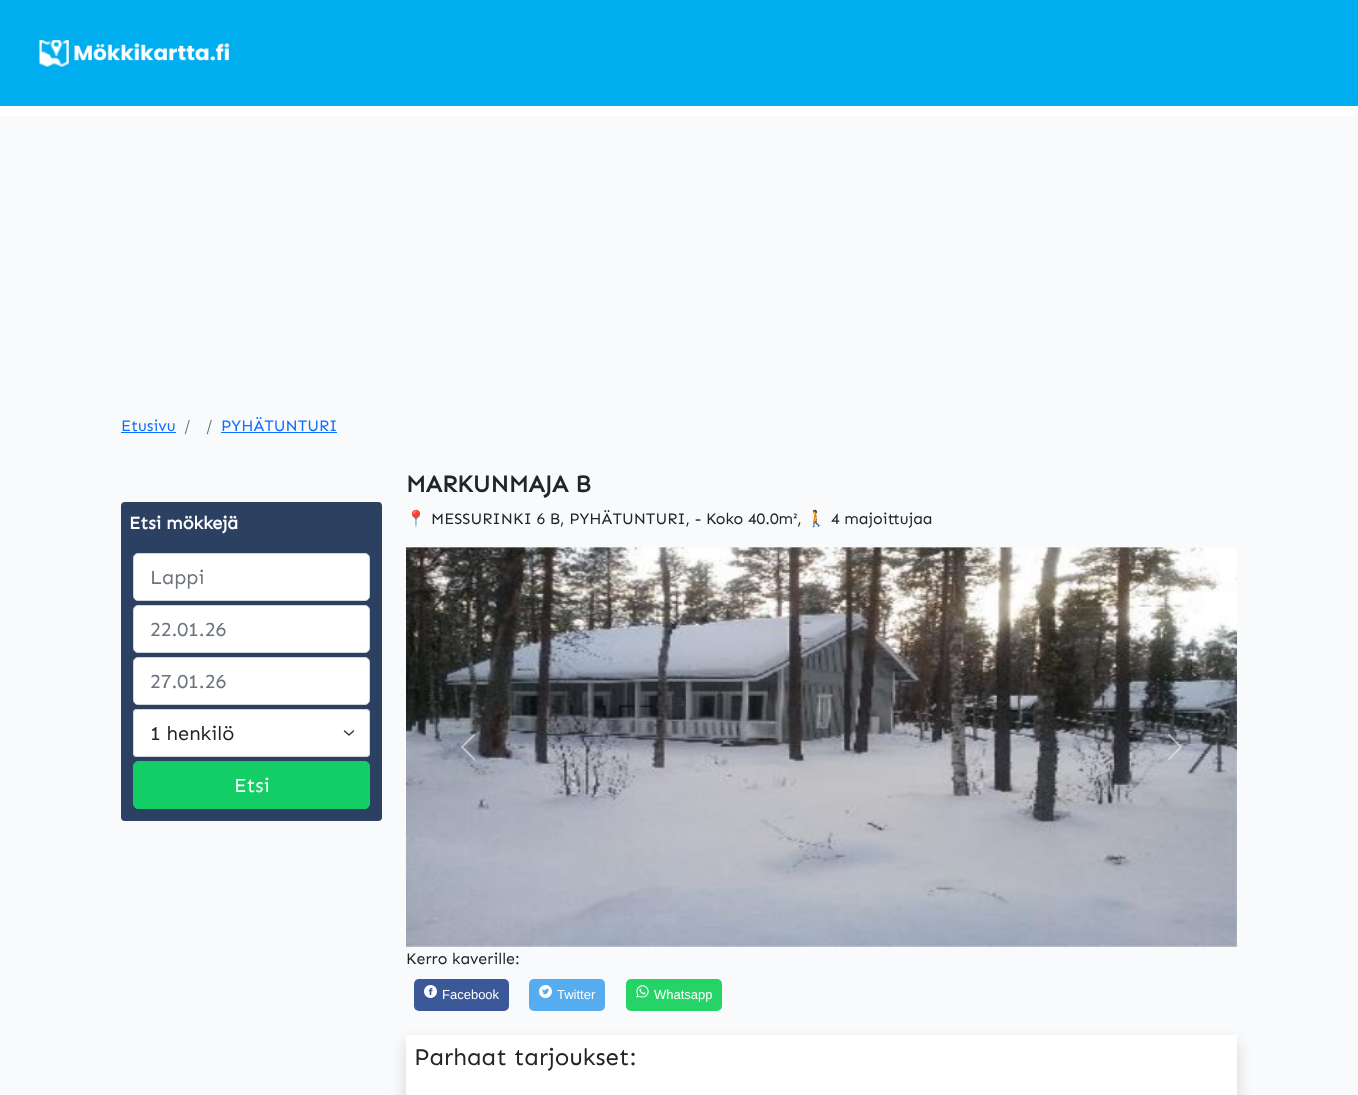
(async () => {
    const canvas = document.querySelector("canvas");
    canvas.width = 1358;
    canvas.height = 1095;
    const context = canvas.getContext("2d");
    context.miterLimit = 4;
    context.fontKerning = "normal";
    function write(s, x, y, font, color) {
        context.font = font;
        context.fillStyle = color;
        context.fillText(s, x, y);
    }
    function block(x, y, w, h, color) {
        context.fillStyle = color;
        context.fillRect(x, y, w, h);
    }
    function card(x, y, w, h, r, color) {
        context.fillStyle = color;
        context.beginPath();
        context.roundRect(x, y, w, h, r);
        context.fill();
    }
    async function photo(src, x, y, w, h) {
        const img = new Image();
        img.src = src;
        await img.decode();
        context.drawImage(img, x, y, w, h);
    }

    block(0, 0, 1358, 1095, "rgb(255, 255, 255)");
    block(0, 0, 1358, 106, "rgb(0, 174, 240)");
    await photo("media/1.png", 39, 40, 191, 27);
    block(0, 116, 1358, 979, "rgb(249, 250, 251)");
    write("Etusivu", 121, 431, "16px Sen", "rgb(13, 110, 253)");
    block(121, 432, 55, 1, "rgb(13, 110, 253)");
    write("/", 184, 431, "16px Sen", "rgb(108, 117, 125)");
    write("/", 206, 431, "16px Sen", "rgb(108, 117, 125)");
    write("PYHÄTUNTURI", 221, 431, "16px Sen", "rgb(13, 110, 253)");
    block(221, 432, 116, 1, "rgb(13, 110, 253)");
    card(121, 502, 261, 319, 4, "rgb(44, 65, 98)");
    write("Etsi mökkejä", 129, 529, "bold 18px Sen", "rgb(255, 255, 255)");
    context.beginPath();
    context.roundRect(133.5, 553.5, 236, 47, 4.5);
    context.fill();
    context.strokeStyle = "rgb(206, 212, 218)";
    context.stroke();
    write("Lappi", 150, 584, "20px Sen", "rgb(108, 117, 125)");
    context.fillStyle = "rgb(255, 255, 255)";
    context.beginPath();
    context.roundRect(133.5, 605.5, 236, 47, 4.5);
    context.fill();
    context.stroke();
    write("22.01.26", 150, 636, "20px Sen", "rgb(108, 117, 125)");
    context.fillStyle = "rgb(255, 255, 255)";
    context.beginPath();
    context.roundRect(133.5, 657.5, 236, 47, 4.5);
    context.fill();
    context.stroke();
    write("27.01.26", 150, 688, "20px Sen", "rgb(108, 117, 125)");
    card(133, 709, 237, 48, 4, "rgb(255, 255, 255)");
    context.beginPath();
    context.moveTo(344.5, 731);
    context.lineTo(349, 735);
    context.lineTo(353.5, 731);
    context.strokeStyle = "rgb(52, 58, 64)";
    context.lineWidth = 1.5;
    context.lineCap = "round";
    context.lineJoin = "round";
    context.stroke();
    context.beginPath();
    context.roundRect(133.5, 709.5, 236, 47, 3.5);
    context.strokeStyle = "rgb(206, 212, 218)";
    context.lineWidth = 1;
    context.lineJoin = "miter";
    context.stroke();
    write("1 henkilö", 150, 740, "20px Sen", "rgb(33, 37, 41)");
    context.fillStyle = "rgb(19, 206, 102)";
    context.beginPath();
    context.roundRect(133.5, 761.5, 236, 47, 4.5);
    context.fill();
    context.strokeStyle = "rgb(19, 206, 102)";
    context.stroke();
    write("Etsi", 234, 792, "20px Sen", "rgb(255, 255, 255)");
    write("MARKUNMAJA B", 406, 492, "bold 24px Sen", "rgb(33, 37, 41)");
    write("📍", 406, 524, "16px Noto Color Emoji", "rgb(33, 37, 41)");
    write("MESSURINKI 6 B, PYHÄTUNTURI, - Koko 40.0m²,", 431, 524, "16px Sen", "rgb(33, 37, 41)");
    write("🚶", 806, 524, "16px Noto Color Emoji", "rgb(33, 37, 41)");
    write("4 majoittujaa", 831, 524, "16px Sen", "rgb(33, 37, 41)");
    await photo("media/2.png", 406, 547, 831, 400);
    await photo("media/3.png", 461, 734, 14, 26);
    await photo("media/4.png", 1168, 734, 14, 26);
    write("Kerro kaverille:", 406, 964, "16px Sen", "rgb(33, 37, 41)");
    card(414, 979, 95, 32, 5, "rgb(59, 89, 152)");
    await photo("media/5.png", 424, 985, 13, 13);
    write("Facebook", 442, 999, "13px Liberation Sans", "rgb(255, 255, 255)");
    card(529, 979, 76, 32, 5, "rgb(85, 172, 238)");
    await photo("media/6.png", 539, 985, 13, 13);
    write("Twitter", 557, 999, "13px Liberation Sans", "rgb(255, 255, 255)");
    card(626, 979, 96, 32, 5, "rgb(37, 211, 102)");
    await photo("media/7.png", 636, 985, 13, 13);
    write("Whatsapp", 654, 999, "13px Liberation Sans", "rgb(255, 255, 255)");
    context.fillStyle = "rgba(0, 0, 0, 0.15)";
    context.filter = "blur(8px)";
    context.beginPath();
    context.rect(406, 1043, 831, 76);
    context.fill();
    context.filter = "none";
    block(406, 1035, 831, 60, "rgb(255, 255, 255)");
    write("Parhaat tarjoukset:", 414, 1065, "24px Sen", "rgb(33, 37, 41)");
})();
